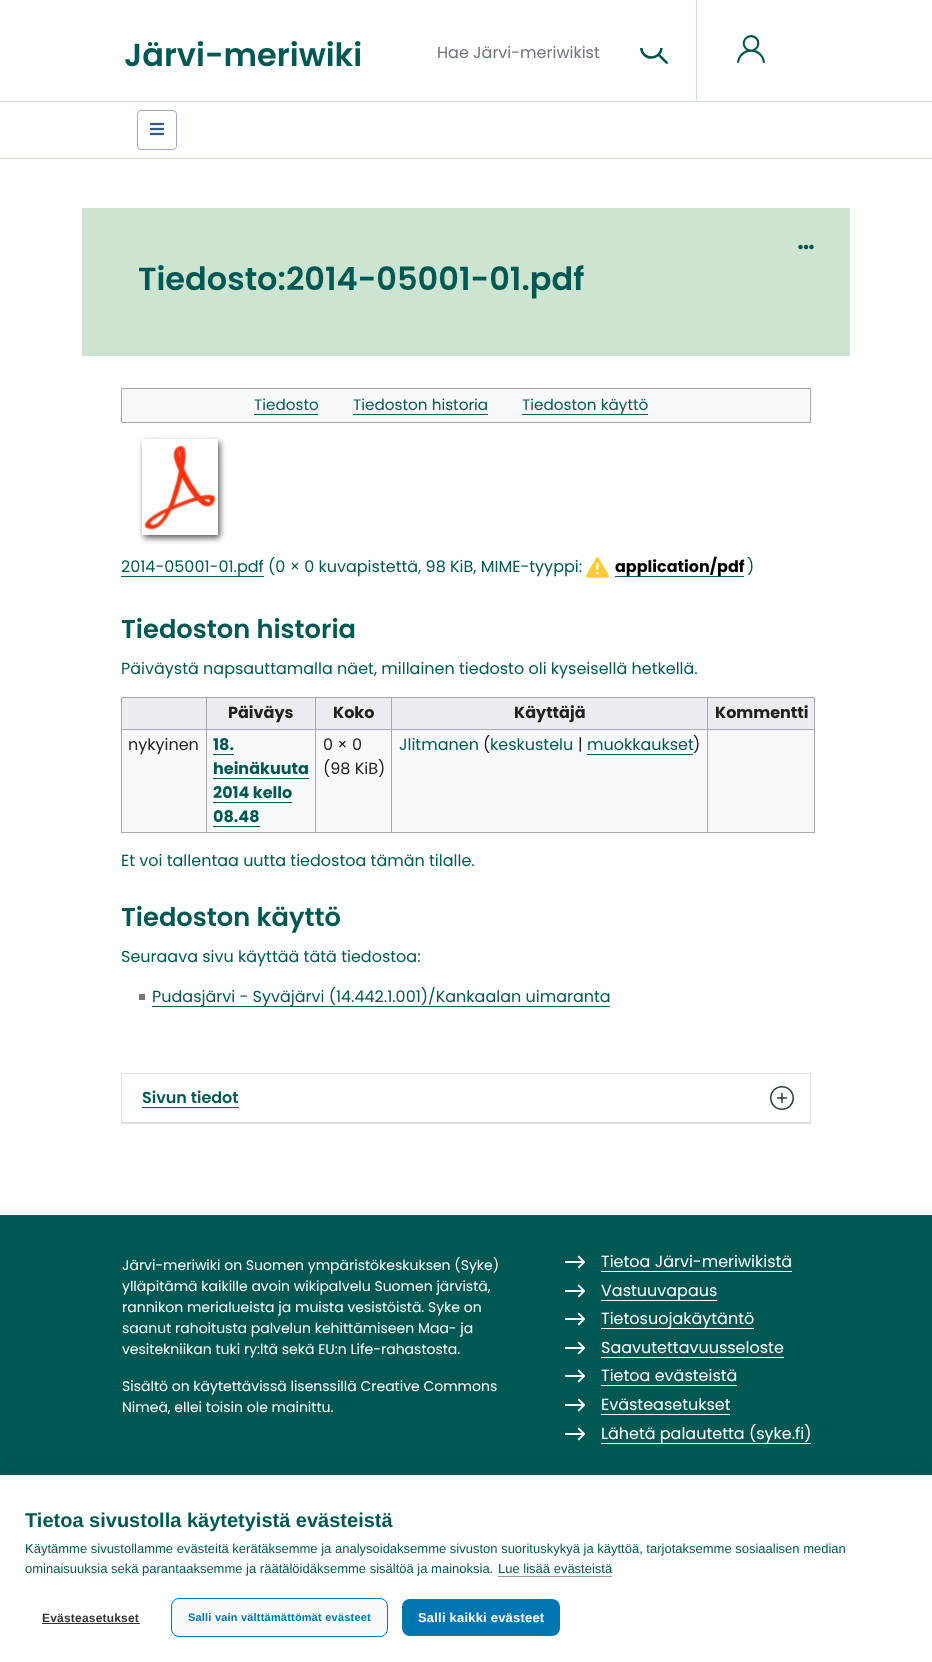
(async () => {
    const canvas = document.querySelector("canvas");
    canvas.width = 932;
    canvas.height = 1662;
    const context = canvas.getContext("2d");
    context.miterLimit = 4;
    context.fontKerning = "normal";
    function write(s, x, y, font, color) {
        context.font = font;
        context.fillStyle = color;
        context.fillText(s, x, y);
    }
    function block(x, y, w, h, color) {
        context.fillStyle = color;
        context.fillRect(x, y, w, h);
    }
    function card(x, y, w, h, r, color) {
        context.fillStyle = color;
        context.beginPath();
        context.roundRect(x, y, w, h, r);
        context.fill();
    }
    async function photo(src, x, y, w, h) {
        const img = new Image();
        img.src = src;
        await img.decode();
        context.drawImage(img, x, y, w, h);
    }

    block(0, 0, 932, 1662, "rgb(255, 255, 255)");
    block(0, 101, 932, 1, "rgb(204, 228, 208)");
    write("Järvi-meriwiki", 124, 66, "600 32px Poppins", "rgb(0, 88, 84)");
    write("Hae Järvi-meriwikist", 437, 58, "16px Poppins", "rgb(108, 117, 125)");
    await photo("media/1.png", 640, 48, 28, 16);
    block(696, 0, 1, 101, "rgb(204, 228, 208)");
    await photo("media/2.png", 737, 35, 28, 28);
    context.beginPath();
    context.roundRect(137.5, 110.5, 39, 39, 3.5);
    context.strokeStyle = "rgb(154, 173, 194)";
    context.stroke();
    await photo("media/3.png", 150, 122, 14, 14);
    block(0, 158, 932, 1, "rgb(204, 228, 208)");
    block(82, 208, 768, 148, "rgb(204, 228, 208)");
    await photo("media/4.png", 798, 244, 16, 6);
    write("Tiedosto:2014-05001-01.pdf", 138, 290, "600 32px Poppins", "rgb(0, 88, 84)");
    context.fillStyle = "rgb(248, 249, 250)";
    context.beginPath();
    context.rect(121.5, 388.5, 689, 34);
    context.fill();
    context.strokeStyle = "rgb(162, 169, 177)";
    context.stroke();
    write("Tiedosto", 254, 410, "15.25px Poppins", "rgb(0, 88, 84)");
    block(254, 414, 64, 1, "rgb(0, 88, 84)");
    write("Tiedoston historia", 353, 410, "15.25px Poppins", "rgb(0, 88, 84)");
    block(353, 414, 135, 1, "rgb(0, 88, 84)");
    write("Tiedoston käyttö", 522, 410, "15.25px Poppins", "rgb(0, 88, 84)");
    block(522, 414, 126, 1, "rgb(0, 88, 84)");
    await photo("media/5.png", 138, 436, 88, 108);
    block(121, 576, 143, 1, "rgb(0, 88, 84)");
    write("2014-05001-01.pdf (0 × 0 kuvapistettä, 98 KiB, MIME-tyyppi:", 121, 572, "16px Poppins", "rgb(0, 88, 84)");
    await photo("media/6.png", 586, 557, 23, 21);
    block(615, 576, 129, 1, "rgb(0, 88, 84)");
    write("application/pdf", 615, 572, "bold 16px Poppins", "rgb(0, 0, 0)");
    write(")", 747, 572, "16px Poppins", "rgb(0, 88, 84)");
    write("Tiedoston historia", 121, 638, "600 25.75px Poppins", "rgb(0, 88, 84)");
    write("Päiväystä napsauttamalla näet, millainen tiedosto oli kyseisellä hetkellä.", 121, 674, "16px Poppins", "rgb(0, 88, 84)");
    block(122, 730, 692, 102, "rgb(248, 249, 250)");
    block(121, 697, 694, 1, "rgb(162, 169, 177)");
    block(814, 697, 1, 136, "rgb(162, 169, 177)");
    block(121, 832, 694, 1, "rgb(162, 169, 177)");
    block(121, 697, 1, 136, "rgb(162, 169, 177)");
    block(122, 698, 84, 31, "rgb(234, 236, 240)");
    block(207, 698, 108, 31, "rgb(234, 236, 240)");
    block(707, 729, 108, 1, "rgb(162, 169, 177)");
    block(707, 729, 1, 104, "rgb(162, 169, 177)");
    block(391, 729, 317, 1, "rgb(162, 169, 177)");
    block(391, 729, 1, 104, "rgb(162, 169, 177)");
    block(315, 729, 77, 1, "rgb(162, 169, 177)");
    block(315, 729, 1, 104, "rgb(162, 169, 177)");
    block(206, 729, 110, 1, "rgb(162, 169, 177)");
    block(206, 729, 1, 104, "rgb(162, 169, 177)");
    block(121, 729, 86, 1, "rgb(162, 169, 177)");
    block(206, 697, 1, 33, "rgb(162, 169, 177)");
    write("Päiväys", 228, 718, "bold 16px Poppins", "rgb(34, 34, 34)");
    block(316, 698, 75, 31, "rgb(234, 236, 240)");
    block(315, 697, 1, 33, "rgb(162, 169, 177)");
    write("Koko", 333, 718, "bold 16px Poppins", "rgb(34, 34, 34)");
    block(392, 698, 315, 31, "rgb(234, 236, 240)");
    block(391, 697, 1, 33, "rgb(162, 169, 177)");
    write("Käyttäjä", 514, 718, "bold 16px Poppins", "rgb(34, 34, 34)");
    block(708, 698, 106, 31, "rgb(234, 236, 240)");
    block(707, 697, 1, 33, "rgb(162, 169, 177)");
    write("Kommentti", 715, 718, "bold 16px Poppins", "rgb(34, 34, 34)");
    write("nykyinen", 128, 750, "16px Poppins", "rgb(34, 34, 34)");
    write("18.", 213, 750, "bold 16px Poppins", "rgb(0, 88, 84)");
    block(213, 754, 21, 1, "rgb(0, 88, 84)");
    write("heinäkuuta", 213, 774, "bold 16px Poppins", "rgb(0, 88, 84)");
    block(213, 778, 96, 1, "rgb(0, 88, 84)");
    write("2014 kello", 213, 798, "bold 16px Poppins", "rgb(0, 88, 84)");
    block(213, 802, 79, 1, "rgb(0, 88, 84)");
    write("08.48", 213, 822, "bold 16px Poppins", "rgb(0, 88, 84)");
    block(213, 826, 47, 1, "rgb(0, 88, 84)");
    write("0 × 0", 323, 750, "16px Poppins", "rgb(34, 34, 34)");
    write("(98 KiB)", 323, 774, "16px Poppins", "rgb(34, 34, 34)");
    write("Jlitmanen", 399, 750, "16px Poppins", "rgb(0, 88, 84)");
    write("(", 483, 750, "16px Poppins", "rgb(34, 34, 34)");
    write("keskustelu", 490, 750, "16px Poppins", "rgb(0, 88, 84)");
    write("|", 578, 750, "16px Poppins", "rgb(34, 34, 34)");
    write("muokkaukset", 587, 750, "16px Poppins", "rgb(0, 88, 84)");
    block(587, 754, 106, 1, "rgb(0, 88, 84)");
    write(")", 693, 750, "16px Poppins", "rgb(34, 34, 34)");
    write("Et voi tallentaa uutta tiedostoa tämän tilalle.", 121, 866, "16px Poppins", "rgb(0, 88, 84)");
    write("Tiedoston käyttö", 121, 926, "600 25.75px Poppins", "rgb(0, 88, 84)");
    write("Seuraava sivu käyttää tätä tiedostoa:", 121, 962, "16px Poppins", "rgb(0, 88, 84)");
    block(139, 994, 6, 6, "rgb(119, 119, 119)");
    block(152, 1006, 458, 1, "rgb(0, 88, 84)");
    write("Pudasjärvi - Syväjärvi (14.442.1.001)/Kankaalan uimaranta", 152, 1002, "16px Poppins", "rgb(0, 88, 84)");
    context.strokeStyle = "rgb(223, 223, 223)";
    context.strokeRect(121.5, 1073.5, 689, 50);
    block(122, 1122, 688, 1, "rgb(223, 223, 223)");
    write("Sivun tiedot", 142, 1103, "600 16px Poppins", "rgb(0, 88, 84)");
    block(142, 1107, 97, 1, "rgb(0, 88, 84)");
    await photo("media/7.png", 770, 1086, 24, 24);
    block(0, 1215, 932, 260, "rgb(0, 88, 84)");
    write("Järvi-meriwiki on Suomen ympäristökeskuksen (Syke)", 122, 1270, "14px Poppins", "rgb(255, 255, 255)");
    write("ylläpitämä kaikille avoin wikipalvelu Suomen järvistä,", 122, 1291, "14px Poppins", "rgb(255, 255, 255)");
    write("rannikon merialueista ja muista vesistöistä. Syke on", 122, 1312, "14px Poppins", "rgb(255, 255, 255)");
    write("saanut rahoitusta palvelun kehittämiseen Maa- ja", 122, 1333, "14px Poppins", "rgb(255, 255, 255)");
    write("vesitekniikan tuki ry:ltä sekä EU:n Life-rahastosta.", 122, 1354, "14px Poppins", "rgb(255, 255, 255)");
    write("Sisältö on käytettävissä lisenssillä Creative Commons", 122, 1391, "14px Poppins", "rgb(255, 255, 255)");
    write("Nimeä, ellei toisin ole mainittu.", 122, 1412, "14px Poppins", "rgb(255, 255, 255)");
    await photo("media/8.png", 565, 1255, 20, 14);
    write("Tietoa Järvi-meriwikistä", 601, 1267, "16px Poppins", "rgb(255, 255, 255)");
    block(601, 1271, 191, 1, "rgb(255, 255, 255)");
    await photo("media/8.png", 565, 1284, 20, 14);
    block(601, 1300, 116, 1, "rgb(255, 255, 255)");
    write("Vastuuvapaus", 601, 1296, "16px Poppins", "rgb(255, 255, 255)");
    await photo("media/8.png", 565, 1312, 20, 14);
    block(601, 1328, 153, 1, "rgb(255, 255, 255)");
    write("Tietosuojakäytäntö", 601, 1324, "16px Poppins", "rgb(255, 255, 255)");
    await photo("media/8.png", 565, 1341, 20, 14);
    write("Saavutettavuusseloste", 601, 1353, "16px Poppins", "rgb(255, 255, 255)");
    block(601, 1357, 183, 1, "rgb(255, 255, 255)");
    await photo("media/8.png", 565, 1369, 20, 14);
    write("Tietoa evästeistä", 601, 1381, "16px Poppins", "rgb(255, 255, 255)");
    block(601, 1385, 136, 1, "rgb(255, 255, 255)");
    await photo("media/8.png", 565, 1398, 20, 14);
    write("Evästeasetukset", 601, 1410, "16px Poppins", "rgb(255, 255, 255)");
    block(601, 1414, 129, 1, "rgb(255, 255, 255)");
    await photo("media/8.png", 565, 1427, 20, 14);
    block(601, 1443, 210, 1, "rgb(255, 255, 255)");
    write("Lähetä palautetta (syke.fi)", 601, 1439, "16px Poppins", "rgb(255, 255, 255)");
    context.fillStyle = "rgba(0, 0, 0, 0.1)";
    context.filter = "blur(10px)";
    context.beginPath();
    context.rect(0, 1475, 932, 187);
    context.fill();
    context.filter = "none";
    block(0, 1475, 932, 187, "rgb(255, 255, 255)");
    write("Tietoa sivustolla käytetyistä evästeistä", 25, 1527, "bold 20px Liberation Sans", "rgb(0, 88, 84)");
    write("Käytämme sivustollamme evästeitä kerätäksemme ja analysoidaksemme sivuston suorituskykyä ja käyttöä, tarjotaksemme sosiaalisen median", 25, 1553, "13px Liberation Sans", "rgb(0, 88, 84)");
    write("ominaisuuksia sekä parantaaksemme ja räätälöidäksemme sisältöä ja mainoksia.", 25, 1573, "13px Liberation Sans", "rgb(0, 88, 84)");
    write("Lue lisää evästeistä", 498, 1573, "13px Liberation Sans", "rgb(0, 88, 84)");
    block(498, 1576, 114, 1, "rgb(153, 153, 153)");
    context.letterSpacing = "0.2px";
    write("Evästeasetukset", 42, 1622, "bold 12px Liberation Sans", "rgb(51, 51, 51)");
    block(42, 1623, 98, 1, "rgb(51, 51, 51)");
    context.fillStyle = "rgb(248, 249, 250)";
    context.beginPath();
    context.roundRect(171.5, 1598.5, 216, 38, 7.5);
    context.fill();
    context.strokeStyle = "rgb(0, 118, 176)";
    context.stroke();
    write("Salli vain välttämättömät evästeet", 188, 1621, "bold 11px Liberation Sans", "rgb(0, 118, 176)");
    card(402, 1599, 158, 37, 8, "rgb(0, 118, 176)");
    write("Salli kaikki evästeet", 418, 1622, "bold 13px Liberation Sans", "rgb(255, 255, 255)");
})();
